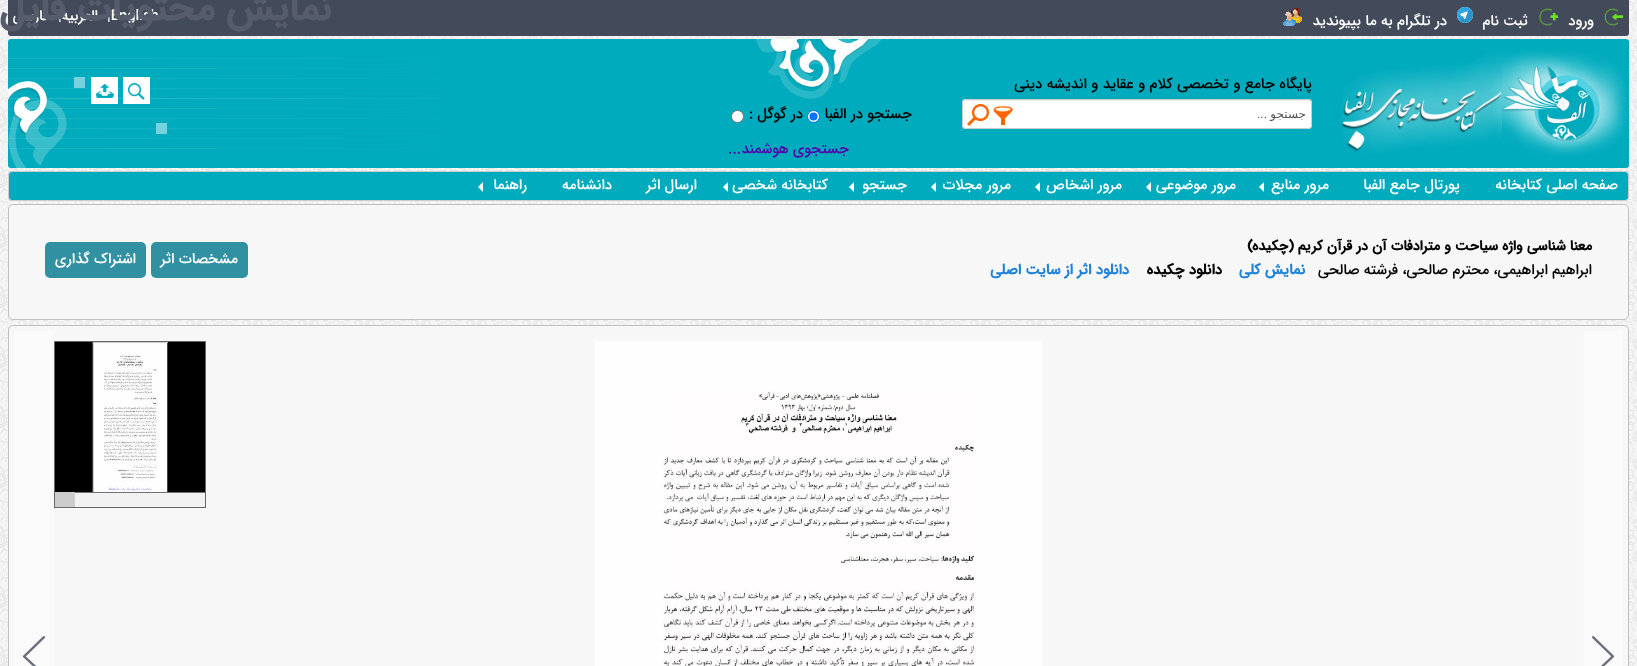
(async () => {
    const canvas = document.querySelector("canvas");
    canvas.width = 1637;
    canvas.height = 666;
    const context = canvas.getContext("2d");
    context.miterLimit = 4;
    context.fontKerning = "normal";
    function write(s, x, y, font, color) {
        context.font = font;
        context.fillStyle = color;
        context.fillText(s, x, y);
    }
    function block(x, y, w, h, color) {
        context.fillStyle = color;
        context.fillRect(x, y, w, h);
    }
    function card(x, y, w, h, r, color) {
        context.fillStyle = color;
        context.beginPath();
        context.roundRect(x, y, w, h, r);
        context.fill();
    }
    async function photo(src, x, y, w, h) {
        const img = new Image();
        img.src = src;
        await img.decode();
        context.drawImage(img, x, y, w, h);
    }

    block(0, 0, 1637, 666, "rgb(255, 255, 255)");
    await photo("media/1.png", 0, 0, 1637, 666);
    context.fillStyle = "rgb(67, 74, 90)";
    context.beginPath();
    context.roundRect(8, 0, 1621, 36, [0, 0, 3, 3]);
    context.fill();
    write("|English", 107, 20, "500 14.7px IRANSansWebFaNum", "rgb(255, 255, 255)");
    context.direction = "rtl";
    write("العربیه", 98, 20, "500 14.7px IRANSansWebFaNum", "rgb(255, 255, 255)");
    context.direction = "ltr";
    write("|", 58, 20, "500 14.7px IRANSansWebFaNum", "rgb(255, 255, 255)");
    context.direction = "rtl";
    write("فارسی", 49, 20, "500 14.7px IRANSansWebFaNum", "rgb(255, 255, 255)");
    write("نمايش محتويات فايل", 331, 20, "bold 38.5px IRANSansWebFaNum", "rgb(86, 92, 107)");
    await photo("media/2.png", 1604, 8, 20, 18);
    write("ورود", 1594, 25, "500 14.7px IRANSansWebFaNum", "rgb(255, 255, 255)");
    await photo("media/3.png", 1539, 8, 19, 18);
    write("ثبت نام", 1528, 25, "500 14.7px IRANSansWebFaNum", "rgb(255, 255, 255)");
    await photo("media/4.png", 1457, 7, 16, 16);
    write("در تلگرام به ما بپیوندید", 1447, 25, "500 14.7px IRANSansWebFaNum", "rgb(255, 255, 255)");
    await photo("media/5.png", 1283, 8, 19, 18);
    card(8, 39, 1621, 129, 3, "rgb(0, 171, 189)");
    await photo("media/6.png", 1502, 50, 126, 106);
    await photo("media/7.png", 1342, 51, 160, 102);
    write("پایگاه جامع و تخصصی کلام و عقاید و اندیشه دینی", 1312, 88, "500 14.7px IRANSansWebFaNum", "rgb(0, 0, 0)");
    card(962, 99, 350, 30, 4, "rgb(255, 255, 255)");
    context.fillStyle = "rgb(236, 236, 236)";
    context.beginPath();
    context.moveTo(966, 101);
    context.lineTo(1308, 101);
    context.bezierCurveTo(1310, 101, 1311, 102, 1311, 104);
    context.bezierCurveTo(1311, 102, 1310, 100, 1308, 100);
    context.lineTo(966, 100);
    context.lineTo(964, 101);
    context.lineTo(963, 104);
    context.bezierCurveTo(963, 102, 964, 101, 966, 101);
    context.closePath();
    context.fill();
    context.beginPath();
    context.roundRect(962.5, 99.5, 349, 29, 3.5);
    context.strokeStyle = "rgb(204, 204, 204)";
    context.stroke();
    write("جستجو", 1306, 118, "12px DejaVu Sans", "rgb(85, 85, 85)");
    write("...", 1267, 118, "12px Liberation Sans", "rgb(85, 85, 85)");
    await photo("media/8.png", 993, 105, 20, 20);
    await photo("media/9.png", 967, 104, 22, 22);
    await photo("media/10.png", 756, 39, 126, 60);
    await photo("media/11.png", 8, 58, 432, 91);
    write("جستجو در الفبا", 912, 118, "500 14.7px IRANSansWebFaNum", "rgb(0, 0, 0)");
    context.fillStyle = "rgb(255, 255, 255)";
    context.beginPath();
    context.arc(813.5, 116.5, 6, 0, Math.PI * 2);
    context.fill();
    context.strokeStyle = "rgb(0, 117, 255)";
    context.stroke();
    context.fillStyle = "rgb(0, 117, 255)";
    context.beginPath();
    context.arc(813.5, 116.5, 4, 0, Math.PI * 2);
    context.fill();
    write("در گوگل", 803, 118, "500 14.7px IRANSansWebFaNum", "rgb(0, 0, 0)");
    context.direction = "ltr";
    write(":", 749, 118, "500 14.7px IRANSansWebFaNum", "rgb(0, 0, 0)");
    context.fillStyle = "rgb(255, 255, 255)";
    context.beginPath();
    context.arc(737.5, 116.5, 6, 0, Math.PI * 2);
    context.fill();
    context.strokeStyle = "rgb(118, 118, 118)";
    context.stroke();
    block(123, 77, 27, 27, "rgb(255, 255, 255)");
    await photo("media/12.png", 128, 83, 17, 17);
    block(91, 77, 27, 27, "rgb(255, 255, 255)");
    await photo("media/13.png", 96, 84, 18, 14);
    block(74, 77, 11, 11, "rgba(148, 220, 227, 0.8)");
    block(156, 123, 11, 11, "rgba(148, 220, 227, 0.8)");
    await photo("media/14.png", 8, 81, 59, 87);
    context.direction = "rtl";
    write("جستجوی هوشمند", 849, 153, "500 14.7px IRANSansWebFaNum", "rgb(85, 0, 170)");
    context.direction = "ltr";
    write("...", 728, 153, "500 14.7px IRANSansWebFaNum", "rgb(85, 0, 170)");
    context.fillStyle = "rgb(255, 255, 255)";
    context.beginPath();
    context.roundRect(8.5, 171.5, 1620, 29, 2.5);
    context.fill();
    context.strokeStyle = "rgb(204, 204, 204)";
    context.stroke();
    card(9, 172, 1619, 28, 3, "rgb(0, 171, 189)");
    context.direction = "rtl";
    write("صفحه اصلی کتابخانه", 1618, 189, "500 14.7px IRANSansWebFaNum", "rgb(255, 255, 255)");
    write("پورتال جامع الفبا", 1460, 189, "500 14.7px IRANSansWebFaNum", "rgb(255, 255, 255)");
    write("مرور منابع", 1329, 189, "500 14.7px IRANSansWebFaNum", "rgb(255, 255, 255)");
    context.beginPath();
    context.moveTo(1264, 182);
    context.lineTo(1264, 192);
    context.lineTo(1259, 187);
    context.closePath();
    context.fill();
    write("مرور موضوعی", 1236, 189, "500 14.7px IRANSansWebFaNum", "rgb(255, 255, 255)");
    context.beginPath();
    context.moveTo(1151, 182);
    context.lineTo(1151, 192);
    context.lineTo(1146, 187);
    context.closePath();
    context.fill();
    write("مرور اشخاص", 1122, 189, "500 14.7px IRANSansWebFaNum", "rgb(255, 255, 255)");
    context.beginPath();
    context.moveTo(1040, 182);
    context.lineTo(1040, 192);
    context.lineTo(1035, 187);
    context.closePath();
    context.fill();
    write("مرور مجلات", 1011, 189, "500 14.7px IRANSansWebFaNum", "rgb(255, 255, 255)");
    context.beginPath();
    context.moveTo(936, 182);
    context.lineTo(936, 192);
    context.lineTo(931, 187);
    context.closePath();
    context.fill();
    write("جستجو", 907, 189, "500 14.7px IRANSansWebFaNum", "rgb(255, 255, 255)");
    context.beginPath();
    context.moveTo(854, 182);
    context.lineTo(854, 192);
    context.lineTo(849, 187);
    context.closePath();
    context.fill();
    write("کتابخانه شخصی", 828, 189, "500 14.7px IRANSansWebFaNum", "rgb(255, 255, 255)");
    context.beginPath();
    context.moveTo(728, 182);
    context.lineTo(728, 192);
    context.lineTo(723, 187);
    context.closePath();
    context.fill();
    write("ارسال اثر", 697, 189, "500 14.7px IRANSansWebFaNum", "rgb(255, 255, 255)");
    write("دانشنامه", 612, 189, "500 14.7px IRANSansWebFaNum", "rgb(255, 255, 255)");
    write("راهنما", 527, 189, "500 14.7px IRANSansWebFaNum", "rgb(255, 255, 255)");
    context.beginPath();
    context.moveTo(483, 182);
    context.lineTo(483, 192);
    context.lineTo(478, 187);
    context.closePath();
    context.fill();
    context.fillStyle = "rgb(247, 247, 247)";
    context.beginPath();
    context.roundRect(8.5, 204.5, 1620, 115, 4.5);
    context.fill();
    context.strokeStyle = "rgb(192, 192, 192)";
    context.stroke();
    write("معنا شناسی واژه سیاحت و مترادفات آن در قرآن کریم", 1592, 250, "bold 14px IRANSansWebFaNum", "rgb(0, 0, 0)");
    write("(چکیده)", 1294, 250, "bold 14px IRANSansWebFaNum", "rgb(0, 0, 0)");
    write("ابراهیم ابراهیمی، محترم صالحی، فرشته صالحی", 1592, 274, "500 14.7px IRANSansWebFaNum", "rgb(0, 0, 0)");
    write("نمایش کلی", 1305, 274, "bold 14.7px IRANSansWebFaNum", "rgb(31, 131, 217)");
    write("دانلود چکیده", 1222, 274, "bold 14.7px IRANSansWebFaNum", "rgb(0, 0, 0)");
    write("دانلود اثر از سایت اصلی", 1129, 274, "bold 14.7px IRANSansWebFaNum", "rgb(31, 131, 217)");
    card(151, 242, 97, 36, 5, "rgb(49, 144, 162)");
    write("مشخصات اثر", 238, 263, "500 14.7px IRANSansWebFaNum", "rgb(255, 255, 255)");
    card(45, 242, 101, 36, 5, "rgb(49, 144, 162)");
    write("اشتراک گذاری", 136, 263, "500 14.7px IRANSansWebFaNum", "rgb(255, 255, 255)");
    context.fillStyle = "rgb(247, 247, 247)";
    context.beginPath();
    context.roundRect(8.5, 325.5, 1620, 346, 4.5);
    context.fill();
    context.stroke();
    block(1583, 331, 40, 335, "rgb(250, 250, 250)");
    await photo("media/15.png", 1592, 636, 22, 30);
    await photo("media/16.png", 595, 341, 447, 325);
    await photo("media/17.png", 662, 391, 322, 275);
    context.fillStyle = "rgb(0, 0, 0)";
    context.beginPath();
    context.rect(54.5, 341.5, 151, 151);
    context.fill();
    context.strokeStyle = "rgb(102, 102, 102)";
    context.stroke();
    await photo("media/18.png", 92, 342, 76, 150);
    context.save();
    context.beginPath();
    context.rect(93, 342, 75, 150);
    context.clip();
    context.strokeStyle = "rgb(204, 204, 204)";
    context.strokeRect(93.5, 342.5, 76, 151);
    context.restore();
    block(75, 492, 130, 15, "rgba(204, 204, 204, 0.1)");
    block(205, 492, 1, 16, "rgb(102, 102, 102)");
    block(54, 507, 152, 1, "rgb(102, 102, 102)");
    block(54, 492, 1, 16, "rgb(102, 102, 102)");
    block(55, 492, 20, 15, "rgb(204, 204, 204)");
    block(14, 331, 40, 335, "rgb(250, 250, 250)");
    await photo("media/19.png", 23, 636, 22, 30);
})();
